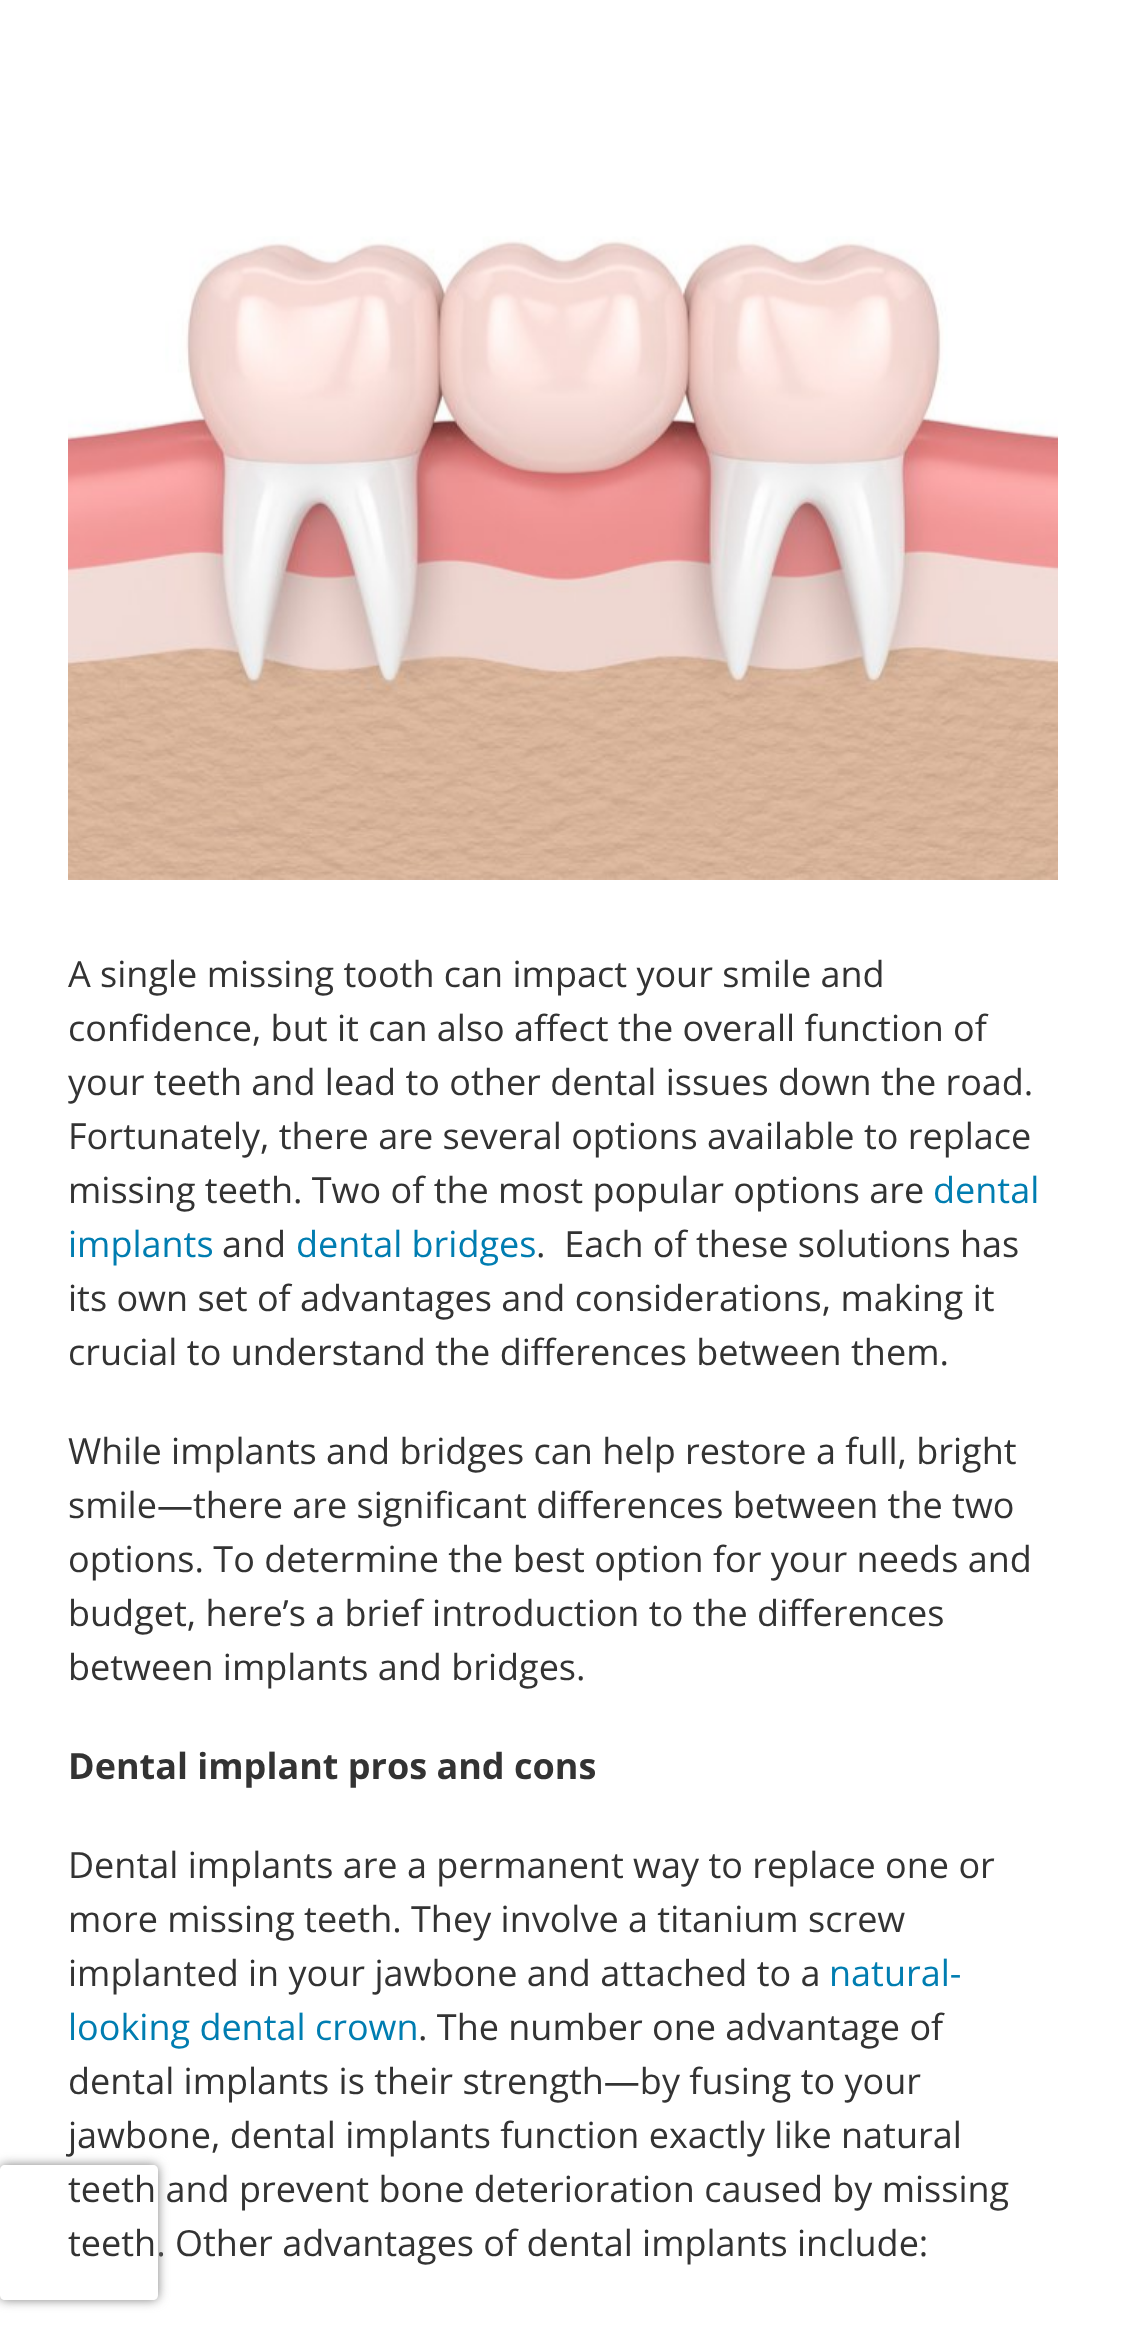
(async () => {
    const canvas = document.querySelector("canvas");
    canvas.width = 1123;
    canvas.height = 2330;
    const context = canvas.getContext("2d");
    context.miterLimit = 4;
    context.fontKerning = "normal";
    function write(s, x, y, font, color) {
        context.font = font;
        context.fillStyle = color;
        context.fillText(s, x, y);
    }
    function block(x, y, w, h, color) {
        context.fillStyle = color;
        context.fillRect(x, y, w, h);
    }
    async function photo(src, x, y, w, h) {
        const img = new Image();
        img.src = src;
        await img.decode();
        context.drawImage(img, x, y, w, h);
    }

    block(0, 0, 1123, 2330, "rgb(255, 255, 255)");
    await photo("media/1.png", 68, 236, 990, 644);
    write("A single missing tooth can impact your smile and", 68, 987, "36px Open Sans", "rgb(51, 51, 51)");
    write("confidence, but it can also affect the overall function of", 68, 1041, "36px Open Sans", "rgb(51, 51, 51)");
    write("your teeth and lead to other dental issues down the road.", 68, 1095, "36px Open Sans", "rgb(51, 51, 51)");
    write("Fortunately, there are several options available to replace", 68, 1149, "36px Open Sans", "rgb(51, 51, 51)");
    write("missing teeth. Two of the most popular options are", 68, 1203, "36px Open Sans", "rgb(51, 51, 51)");
    write("dental", 933, 1203, "36px Open Sans", "rgb(0, 125, 177)");
    write("implants", 68, 1257, "36px Open Sans", "rgb(0, 125, 177)");
    write("and", 222, 1257, "36px Open Sans", "rgb(51, 51, 51)");
    write("dental bridges", 296, 1257, "36px Open Sans", "rgb(0, 125, 177)");
    write(".  Each of these solutions has", 536, 1257, "36px Open Sans", "rgb(51, 51, 51)");
    write("its own set of advantages and considerations, making it", 68, 1311, "36px Open Sans", "rgb(51, 51, 51)");
    write("crucial to understand the differences between them.", 68, 1365, "36px Open Sans", "rgb(51, 51, 51)");
    write("While implants and bridges can help restore a full, bright", 68, 1464, "36px Open Sans", "rgb(51, 51, 51)");
    write("smile—there are significant differences between the two", 68, 1518, "36px Open Sans", "rgb(51, 51, 51)");
    write("options. To determine the best option for your needs and", 68, 1572, "36px Open Sans", "rgb(51, 51, 51)");
    write("budget, here’s a brief introduction to the differences", 68, 1626, "36px Open Sans", "rgb(51, 51, 51)");
    write("between implants and bridges.", 68, 1680, "36px Open Sans", "rgb(51, 51, 51)");
    write("Dental implant pros and cons", 68, 1779, "bold 36px Open Sans", "rgb(51, 51, 51)");
    write("Dental implants are a permanent way to replace one or", 68, 1878, "36px Open Sans", "rgb(51, 51, 51)");
    write("more missing teeth. They involve a titanium screw", 68, 1932, "36px Open Sans", "rgb(51, 51, 51)");
    write("implanted in your jawbone and attached to a", 68, 1986, "36px Open Sans", "rgb(51, 51, 51)");
    write("natural-", 829, 1986, "36px Open Sans", "rgb(0, 125, 177)");
    write("looking dental crown", 68, 2040, "36px Open Sans", "rgb(0, 125, 177)");
    write(". The number one advantage of", 418, 2040, "36px Open Sans", "rgb(51, 51, 51)");
    write("dental implants is their strength—by fusing to your", 68, 2094, "36px Open Sans", "rgb(51, 51, 51)");
    write("jawbone, dental implants function exactly like natural", 68, 2148, "36px Open Sans", "rgb(51, 51, 51)");
    write("teeth and prevent bone deterioration caused by missing", 68, 2202, "36px Open Sans", "rgb(51, 51, 51)");
    write("teeth. Other advantages of dental implants include:", 68, 2256, "36px Open Sans", "rgb(51, 51, 51)");
    context.save();
    context.beginPath();
    context.moveTo(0, 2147);
    context.lineTo(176, 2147);
    context.lineTo(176, 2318);
    context.lineTo(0, 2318);
    context.closePath();
    context.moveTo(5, 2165);
    context.lineTo(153, 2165);
    context.bezierCurveTo(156, 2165, 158, 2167, 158, 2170);
    context.lineTo(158, 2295);
    context.bezierCurveTo(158, 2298, 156, 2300, 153, 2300);
    context.lineTo(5, 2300);
    context.bezierCurveTo(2, 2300, 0, 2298, 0, 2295);
    context.lineTo(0, 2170);
    context.bezierCurveTo(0, 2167, 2, 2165, 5, 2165);
    context.closePath();
    context.clip("evenodd");
    context.fillStyle = "rgb(128, 128, 128)";
    context.filter = "blur(5.5px)";
    context.beginPath();
    context.roundRect(0, 2165, 158, 135, 5);
    context.fill();
    context.filter = "none";
    context.restore();
})();
